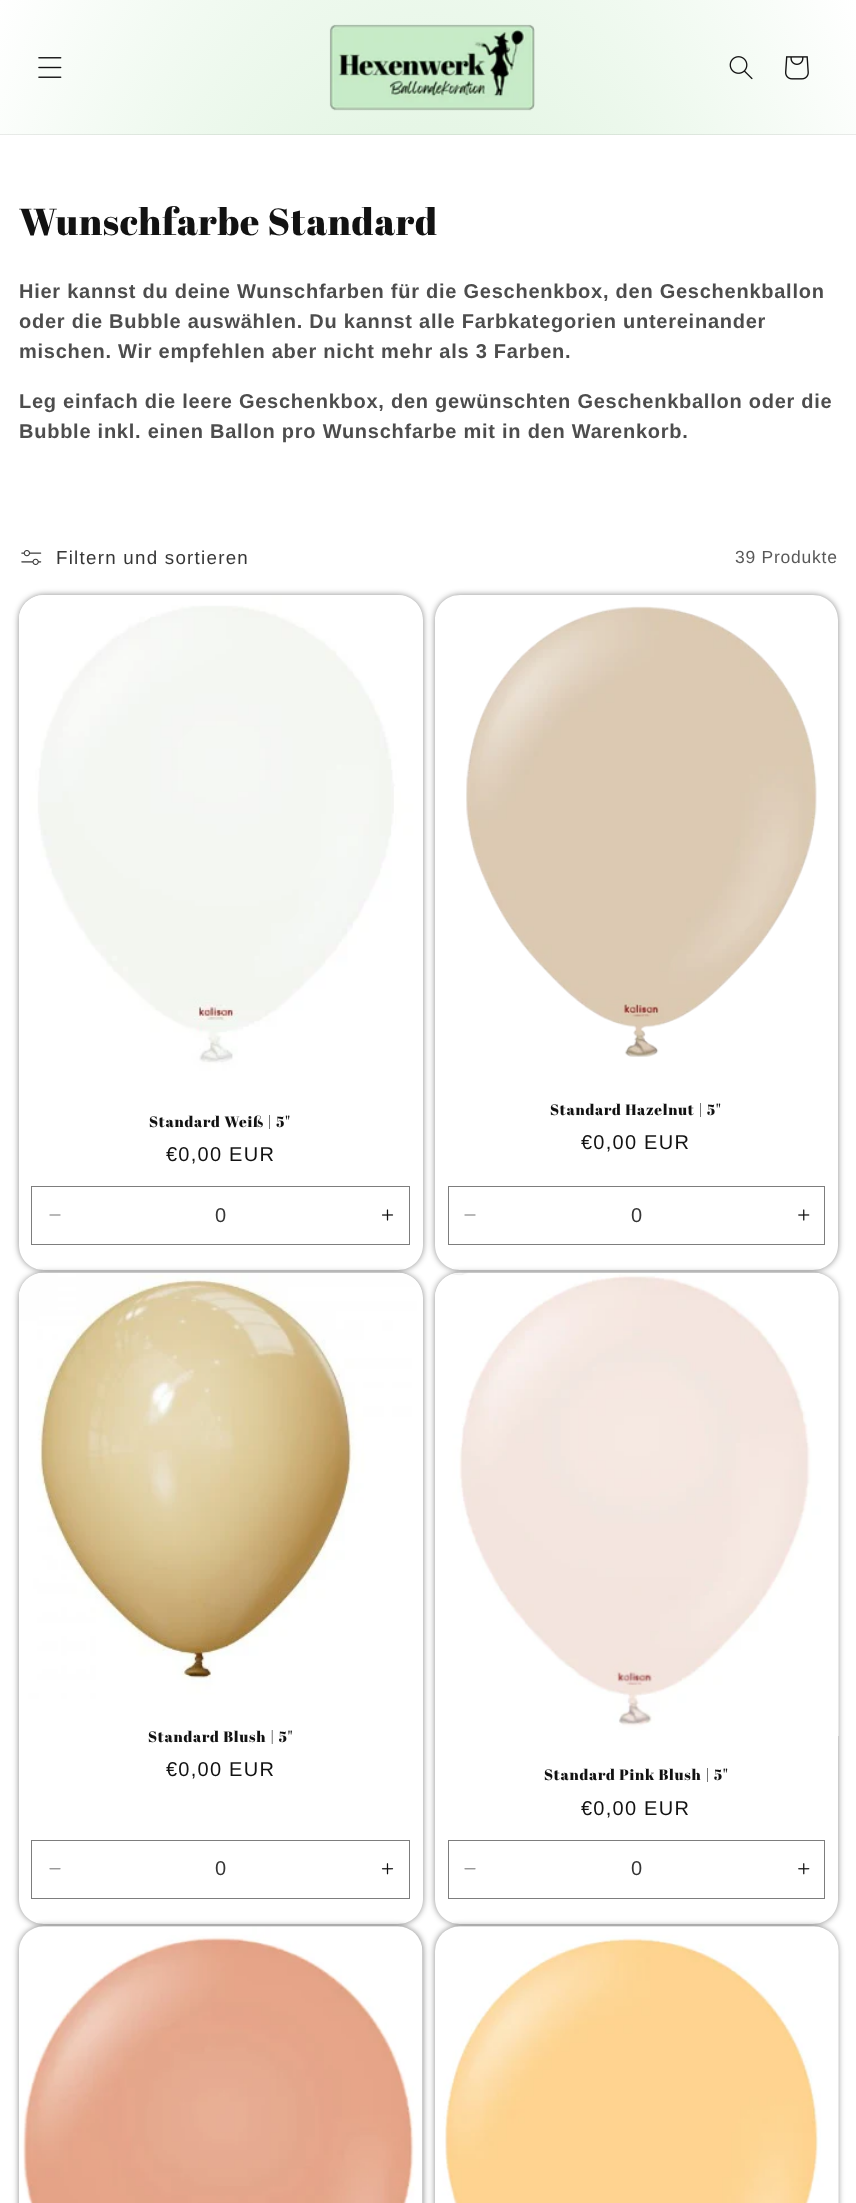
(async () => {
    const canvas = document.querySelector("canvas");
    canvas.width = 856;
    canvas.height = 2203;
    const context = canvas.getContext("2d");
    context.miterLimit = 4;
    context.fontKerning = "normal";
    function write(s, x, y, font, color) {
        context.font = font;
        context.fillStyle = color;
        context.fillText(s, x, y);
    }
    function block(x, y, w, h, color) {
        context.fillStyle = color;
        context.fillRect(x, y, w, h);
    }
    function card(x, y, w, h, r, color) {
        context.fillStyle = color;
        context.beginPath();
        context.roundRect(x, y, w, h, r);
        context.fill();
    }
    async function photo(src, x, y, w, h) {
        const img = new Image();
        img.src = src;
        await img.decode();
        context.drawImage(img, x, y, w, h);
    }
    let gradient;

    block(0, 0, 856, 2203, "rgb(255, 255, 255)");
    gradient = context.createRadialGradient(428, 427.93, 0, 428, 427.93, 605);
    gradient.addColorStop(0.16, "rgb(199, 235, 199)");
    gradient.addColorStop(1, "rgb(255, 255, 255)");
    context.fillStyle = gradient;
    context.beginPath();
    context.rect(0, 0, 856, 134);
    context.save();
    context.clip();
    context.scale(1, 1558 / 605);
    context.fillRect(0, 0, 856, 856);
    context.restore();
    gradient = context.createRadialGradient(428, 427.93, 0, 428, 427.93, 605);
    gradient.addColorStop(0.16, "rgb(185, 218, 185)");
    gradient.addColorStop(1, "rgb(236, 236, 236)");
    context.fillStyle = gradient;
    context.beginPath();
    context.rect(0, 134, 856, 1);
    context.save();
    context.clip();
    context.scale(1, 1558 / 605);
    context.fillRect(0, 0, 856, 856);
    context.restore();
    await photo("media/1.png", 38, 57, 24, 21);
    await photo("media/2.png", 329, 24, 206, 87);
    await photo("media/3.png", 729, 56, 24, 24);
    await photo("media/4.png", 785, 56, 24, 24);
    context.letterSpacing = "0.75px";
    write("Wunschfarbe Standard", 19, 235, "37.5px Abril Fatface", "rgb(18, 18, 18)");
    write("Hier kannst du deine Wunschfarben für die Geschenkbox, den Geschenkballon", 19, 298, "bold 20px Liberation Sans", "rgb(77, 77, 77)");
    write("oder die Bubble auswählen. Du kannst alle Farbkategorien untereinander", 19, 328, "bold 20px Liberation Sans", "rgb(77, 77, 77)");
    write("mischen. Wir empfehlen aber nicht mehr als 3 Farben.", 19, 358, "bold 20px Liberation Sans", "rgb(77, 77, 77)");
    write("Leg einfach die leere Geschenkbox, den gewünschten Geschenkballon oder die", 19, 408, "bold 20px Liberation Sans", "rgb(77, 77, 77)");
    write("Bubble inkl. einen Ballon pro Wunschfarbe mit in den Warenkorb.", 19, 438, "bold 20px Liberation Sans", "rgb(77, 77, 77)");
    await photo("media/5.png", 21, 550, 21, 15);
    context.letterSpacing = "1.25px";
    write("Filtern und sortieren", 56, 564, "18.75px Liberation Sans", "rgb(54, 54, 54)");
    context.letterSpacing = "0.75px";
    write("39 Produkte", 735, 563, "17.5px Liberation Sans", "rgb(89, 89, 89)");
    context.save();
    context.beginPath();
    context.moveTo(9, 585);
    context.lineTo(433, 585);
    context.lineTo(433, 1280);
    context.lineTo(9, 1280);
    context.closePath();
    context.moveTo(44, 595);
    context.lineTo(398, 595);
    context.bezierCurveTo(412, 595, 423, 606, 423, 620);
    context.lineTo(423, 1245);
    context.bezierCurveTo(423, 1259, 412, 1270, 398, 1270);
    context.lineTo(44, 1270);
    context.bezierCurveTo(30, 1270, 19, 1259, 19, 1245);
    context.lineTo(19, 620);
    context.bezierCurveTo(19, 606, 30, 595, 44, 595);
    context.closePath();
    context.clip("evenodd");
    context.fillStyle = "rgba(18, 18, 18, 0.5)";
    context.filter = "blur(3px)";
    context.beginPath();
    context.roundRect(19, 595, 404, 675, 25);
    context.fill();
    context.filter = "none";
    context.restore();
    await photo("media/6.png", 19, 595, 404, 487);
    write("Standard Weiß | 5\"", 149, 1127, "15px Abril Fatface", "rgb(18, 18, 18)");
    context.letterSpacing = "1.25px";
    write("€0,00 EUR", 166, 1161, "20px Liberation Sans", "rgb(18, 18, 18)");
    await photo("media/7.png", 49, 1214, 12, 2);
    await photo("media/8.png", 382, 1209, 12, 12);
    context.strokeStyle = "rgb(125, 125, 125)";
    context.strokeRect(31.5, 1186.5, 378, 58);
    context.letterSpacing = "0px";
    write("0", 215, 1222, "20px Liberation Sans", "rgb(54, 54, 54)");
    context.save();
    context.beginPath();
    context.moveTo(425, 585);
    context.lineTo(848, 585);
    context.lineTo(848, 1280);
    context.lineTo(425, 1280);
    context.closePath();
    context.moveTo(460, 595);
    context.lineTo(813, 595);
    context.bezierCurveTo(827, 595, 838, 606, 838, 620);
    context.lineTo(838, 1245);
    context.bezierCurveTo(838, 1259, 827, 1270, 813, 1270);
    context.lineTo(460, 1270);
    context.bezierCurveTo(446, 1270, 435, 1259, 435, 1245);
    context.lineTo(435, 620);
    context.bezierCurveTo(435, 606, 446, 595, 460, 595);
    context.closePath();
    context.clip("evenodd");
    context.fillStyle = "rgba(18, 18, 18, 0.5)";
    context.filter = "blur(3px)";
    context.beginPath();
    context.roundRect(435, 595, 403, 675, 25);
    context.fill();
    context.filter = "none";
    context.restore();
    await photo("media/9.png", 466, 606, 351, 451);
    context.letterSpacing = "0.75px";
    write("Standard Hazelnut | 5\"", 550, 1115, "15px Abril Fatface", "rgb(18, 18, 18)");
    context.letterSpacing = "1.25px";
    write("€0,00 EUR", 581, 1149, "20px Liberation Sans", "rgb(18, 18, 18)");
    await photo("media/7.png", 464, 1214, 12, 2);
    await photo("media/10.png", 798, 1209, 12, 12);
    context.strokeRect(448.5, 1186.5, 376, 58);
    context.letterSpacing = "0px";
    write("0", 631, 1222, "20px Liberation Sans", "rgb(54, 54, 54)");
    card(19, 1273, 404, 651, 25, "rgb(255, 255, 255)");
    context.save();
    context.beginPath();
    context.moveTo(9, 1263);
    context.lineTo(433, 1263);
    context.lineTo(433, 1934);
    context.lineTo(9, 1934);
    context.closePath();
    context.moveTo(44, 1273);
    context.lineTo(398, 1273);
    context.bezierCurveTo(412, 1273, 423, 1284, 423, 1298);
    context.lineTo(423, 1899);
    context.bezierCurveTo(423, 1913, 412, 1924, 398, 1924);
    context.lineTo(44, 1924);
    context.bezierCurveTo(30, 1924, 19, 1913, 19, 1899);
    context.lineTo(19, 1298);
    context.bezierCurveTo(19, 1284, 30, 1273, 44, 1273);
    context.closePath();
    context.clip("evenodd");
    context.fillStyle = "rgba(18, 18, 18, 0.5)";
    context.filter = "blur(3px)";
    context.beginPath();
    context.roundRect(19, 1273, 404, 651, 25);
    context.fill();
    context.filter = "none";
    context.restore();
    await photo("media/11.png", 19, 1272, 404, 427);
    context.letterSpacing = "0.75px";
    write("Standard Blush | 5\"", 148, 1742, "15px Abril Fatface", "rgb(18, 18, 18)");
    context.letterSpacing = "1.25px";
    write("€0,00 EUR", 166, 1776, "20px Liberation Sans", "rgb(18, 18, 18)");
    await photo("media/12.png", 49, 1868, 12, 2);
    await photo("media/13.png", 381, 1863, 13, 12);
    context.strokeRect(31.5, 1840.5, 378, 58);
    context.letterSpacing = "0px";
    write("0", 215, 1875, "20px Liberation Sans", "rgb(54, 54, 54)");
    card(435, 1273, 403, 651, 25, "rgb(255, 255, 255)");
    context.save();
    context.beginPath();
    context.moveTo(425, 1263);
    context.lineTo(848, 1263);
    context.lineTo(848, 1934);
    context.lineTo(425, 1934);
    context.closePath();
    context.moveTo(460, 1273);
    context.lineTo(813, 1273);
    context.bezierCurveTo(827, 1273, 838, 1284, 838, 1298);
    context.lineTo(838, 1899);
    context.bezierCurveTo(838, 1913, 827, 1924, 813, 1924);
    context.lineTo(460, 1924);
    context.bezierCurveTo(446, 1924, 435, 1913, 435, 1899);
    context.lineTo(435, 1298);
    context.bezierCurveTo(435, 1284, 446, 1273, 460, 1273);
    context.closePath();
    context.clip("evenodd");
    context.fillStyle = "rgba(18, 18, 18, 0.5)";
    context.filter = "blur(3px)";
    context.beginPath();
    context.roundRect(435, 1273, 403, 651, 25);
    context.fill();
    context.filter = "none";
    context.restore();
    await photo("media/14.png", 435, 1272, 404, 464);
    context.letterSpacing = "0.75px";
    write("Standard Pink Blush | 5\"", 544, 1780, "15px Abril Fatface", "rgb(18, 18, 18)");
    context.letterSpacing = "1.25px";
    write("€0,00 EUR", 581, 1815, "20px Liberation Sans", "rgb(18, 18, 18)");
    await photo("media/12.png", 464, 1868, 12, 2);
    await photo("media/15.png", 798, 1863, 12, 12);
    context.strokeRect(448.5, 1840.5, 376, 58);
    context.letterSpacing = "0px";
    write("0", 631, 1875, "20px Liberation Sans", "rgb(54, 54, 54)");
    card(19, 1926, 404, 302, 25, "rgb(255, 255, 255)");
    context.fillStyle = "rgba(18, 18, 18, 0.5)";
    context.filter = "blur(3px)";
    context.beginPath();
    context.roundRect(19, 1926, 404, 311, 25);
    context.fill();
    context.filter = "none";
    await photo("media/16.png", 19, 1926, 404, 277);
    card(435, 1926, 403, 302, 25, "rgb(255, 255, 255)");
    context.fillStyle = "rgba(18, 18, 18, 0.5)";
    context.filter = "blur(3px)";
    context.beginPath();
    context.roundRect(435, 1926, 403, 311, 25);
    context.fill();
    context.filter = "none";
    await photo("media/17.png", 435, 1926, 404, 277);
})();
